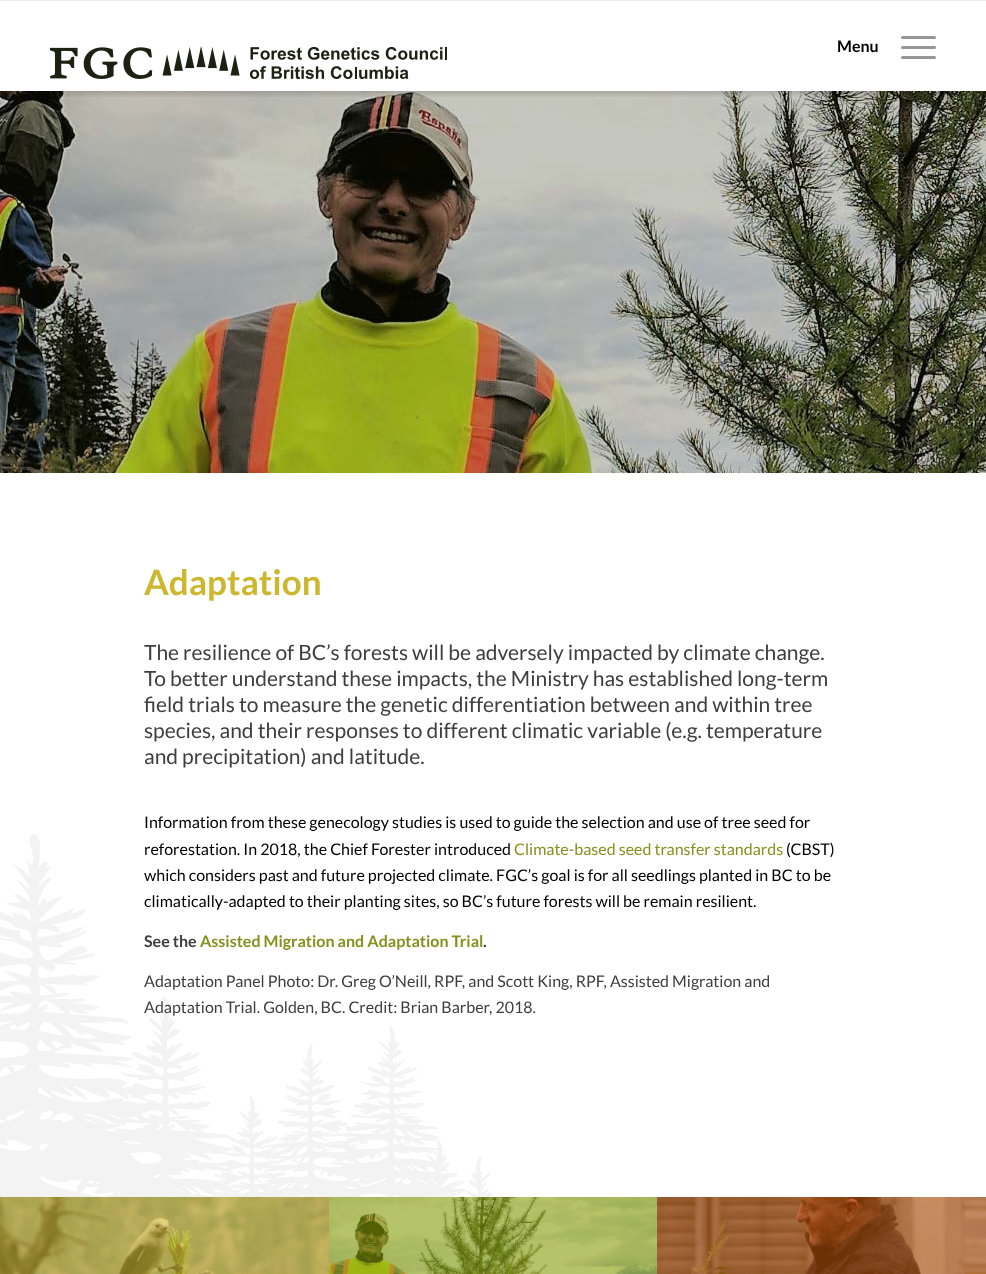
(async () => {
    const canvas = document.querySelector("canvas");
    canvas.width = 986;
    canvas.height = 1274;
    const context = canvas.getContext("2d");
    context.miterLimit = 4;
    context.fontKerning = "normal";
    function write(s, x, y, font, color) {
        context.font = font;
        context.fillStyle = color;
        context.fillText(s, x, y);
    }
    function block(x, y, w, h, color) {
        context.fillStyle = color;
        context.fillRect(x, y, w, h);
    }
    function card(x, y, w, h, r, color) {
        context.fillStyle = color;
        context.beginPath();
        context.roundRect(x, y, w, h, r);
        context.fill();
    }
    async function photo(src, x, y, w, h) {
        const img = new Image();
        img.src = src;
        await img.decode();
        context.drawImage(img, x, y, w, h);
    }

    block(0, 0, 986, 1274, "rgb(255, 255, 255)");
    await photo("media/2.png", 0, 91, 986, 382);
    context.save();
    context.beginPath();
    context.rect(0, 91, 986, 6);
    context.clip();
    context.fillStyle = "rgba(0, 0, 0, 0.16)";
    context.filter = "blur(3px)";
    context.beginPath();
    context.rect(0, 3, 986, 91);
    context.fill();
    context.filter = "none";
    context.restore();
    block(0, 0, 986, 1, "rgb(235, 235, 235)");
    await photo("media/1.png", 50, 46, 397, 33);
    write("Menu", 837, 52, "bold 16px Lato", "rgb(0, 0, 0)");
    card(901, 46, 35, 3, 1.5, "rgb(150, 150, 150)");
    card(901, 36, 35, 3, 1.5, "rgb(150, 150, 150)");
    card(901, 56, 35, 3, 1.5, "rgb(150, 150, 150)");
    await photo("media/3.png", 0, 834, 493, 363);
    write("Adaptation", 144, 595, "bold 35px Lato", "rgb(204, 183, 46)");
    write("The resilience of BC’s forests will be adversely impacted by climate change.", 144, 660, "21px Lato", "rgb(62, 62, 62)");
    write("To better understand these impacts, the Ministry has established long-term", 144, 686, "21px Lato", "rgb(62, 62, 62)");
    write("field trials to measure the genetic differentiation between and within tree", 144, 712, "21px Lato", "rgb(62, 62, 62)");
    write("species, and their responses to different climatic variable (e.g. temperature", 144, 738, "21px Lato", "rgb(62, 62, 62)");
    write("and precipitation) and latitude.", 144, 764, "21px Lato", "rgb(62, 62, 62)");
    write("Information from these genecology studies is used to guide the selection and use of tree seed for", 144, 828, "16px Lato", "rgb(0, 0, 0)");
    write("reforestation. In 2018, the Chief Forester introduced", 144, 855, "16px Lato", "rgb(0, 0, 0)");
    write("Climate-based seed transfer standards", 514, 855, "16px Lato", "rgb(131, 146, 30)");
    write("(CBST)", 786, 855, "16px Lato", "rgb(0, 0, 0)");
    write("which considers past and future projected climate. FGC’s goal is for all seedlings planted in BC to be", 144, 881, "16px Lato", "rgb(0, 0, 0)");
    write("climatically-adapted to their planting sites, so BC’s future forests will be remain resilient.", 144, 907, "16px Lato", "rgb(0, 0, 0)");
    write("See the", 144, 947, "bold 16px Lato", "rgb(62, 62, 62)");
    write("Assisted Migration and Adaptation Trial", 200, 947, "bold 16px Lato", "rgb(131, 146, 30)");
    write(".", 483, 947, "bold 16px Lato", "rgb(62, 62, 62)");
    write("Adaptation Panel Photo: Dr. Greg O’Neill, RPF, and Scott King, RPF, Assisted Migration and", 144, 987, "16px Lato", "rgb(62, 62, 62)");
    write("Adaptation Trial. Golden, BC. Credit: Brian Barber, 2018.", 144, 1013, "16px Lato", "rgb(62, 62, 62)");
    await photo("media/4.png", 0, 1197, 329, 77);
    await photo("media/5.png", 329, 1197, 328, 77);
    await photo("media/6.png", 657, 1197, 329, 77);
})();
